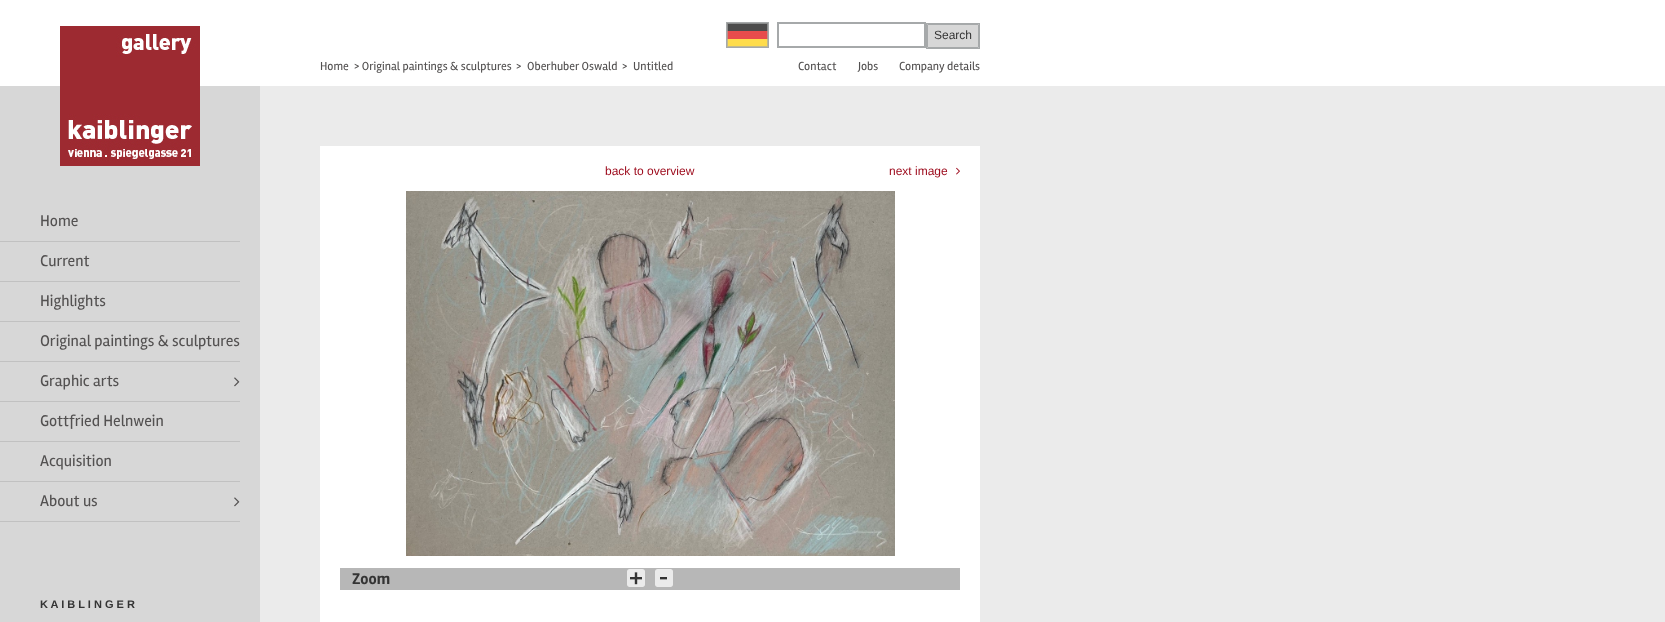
(async () => {
    const canvas = document.querySelector("canvas");
    canvas.width = 1665;
    canvas.height = 622;
    const context = canvas.getContext("2d");
    context.miterLimit = 4;
    context.fontKerning = "normal";
    function write(s, x, y, font, color) {
        context.font = font;
        context.fillStyle = color;
        context.fillText(s, x, y);
    }
    function block(x, y, w, h, color) {
        context.fillStyle = color;
        context.fillRect(x, y, w, h);
    }
    async function photo(src, x, y, w, h) {
        const img = new Image();
        img.src = src;
        await img.decode();
        context.drawImage(img, x, y, w, h);
    }

    block(0, 0, 1665, 622, "rgb(235, 235, 235)");
    block(0, 86, 260, 536, "rgb(215, 215, 215)");
    block(0, 0, 1665, 86, "rgb(255, 255, 255)");
    await photo("media/1.png", 60, 26, 140, 140);
    block(0, 241, 240, 1, "rgb(193, 193, 193)");
    write("Home", 40, 226, "16px Rambla", "rgb(83, 81, 81)");
    block(0, 281, 240, 1, "rgb(193, 193, 193)");
    write("Current", 40, 266, "16px Rambla", "rgb(83, 81, 81)");
    block(0, 321, 240, 1, "rgb(193, 193, 193)");
    write("Highlights", 40, 306, "16px Rambla", "rgb(83, 81, 81)");
    block(0, 361, 240, 1, "rgb(193, 193, 193)");
    write("Original paintings & sculptures", 40, 346, "16px Rambla", "rgb(83, 81, 81)");
    block(0, 401, 240, 1, "rgb(193, 193, 193)");
    write("Graphic arts", 40, 386, "16px Rambla", "rgb(83, 81, 81)");
    await photo("media/2.png", 234, 377, 6, 10);
    block(0, 441, 240, 1, "rgb(193, 193, 193)");
    write("Gottfried Helnwein", 40, 426, "16px Rambla", "rgb(83, 81, 81)");
    block(0, 481, 240, 1, "rgb(193, 193, 193)");
    write("Acquisition", 40, 466, "16px Rambla", "rgb(83, 81, 81)");
    write("About us", 40, 506, "16px Rambla", "rgb(83, 81, 81)");
    await photo("media/2.png", 234, 497, 6, 10);
    block(0, 521, 240, 1, "rgb(193, 193, 193)");
    write("K A I B L I N G E R", 40, 608, "bold 11px Liberation Sans", "rgb(52, 52, 52)");
    context.strokeStyle = "rgb(166, 169, 170)";
    context.strokeRect(726.5, 22.5, 42, 25);
    await photo("media/3.png", 727, 23, 41, 24);
    context.strokeStyle = "rgba(166, 169, 170, 0.7)";
    context.strokeRect(727.5, 23.5, 40, 23);
    context.strokeStyle = "rgb(166, 169, 170)";
    context.strokeRect(778.5, 23.5, 146, 23);
    context.strokeRect(777.5, 22.5, 148, 25);
    context.fillStyle = "rgb(215, 215, 215)";
    context.beginPath();
    context.rect(927.5, 24.5, 51, 23);
    context.fill();
    context.stroke();
    context.strokeRect(926.5, 23.5, 53, 25);
    write("Search", 934, 39, "12px Liberation Sans", "rgb(52, 52, 52)");
    write("Home", 320, 70, "12px Rambla", "rgb(83, 81, 81)");
    write("> Original paintings & sculptures", 354, 70, "12px Rambla", "rgb(83, 81, 81)");
    write(">", 516, 70, "12px Rambla", "rgb(83, 81, 81)");
    write("Oberhuber Oswald", 527, 70, "12px Rambla", "rgb(83, 81, 81)");
    write(">", 622, 70, "12px Rambla", "rgb(83, 81, 81)");
    write("Untitled", 633, 70, "12px Rambla", "rgb(83, 81, 81)");
    write("Contact", 798, 70, "12px Rambla", "rgb(83, 81, 81)");
    write("Jobs", 858, 70, "12px Rambla", "rgb(83, 81, 81)");
    write("Company details", 899, 70, "12px Rambla", "rgb(83, 81, 81)");
    block(320, 146, 660, 476, "rgb(255, 255, 255)");
    write("back to overview", 605, 175, "12px Liberation Sans", "rgb(156, 8, 26)");
    write("next image", 889, 175, "12px Liberation Sans", "rgb(156, 8, 26)");
    await photo("media/4.png", 956, 167, 4, 8);
    await photo("media/5.png", 406, 191, 489, 365);
    block(340, 568, 620, 22, "rgb(183, 183, 183)");
    write("Zoom", 352, 584, "bold 16px Rambla", "rgb(52, 52, 52)");
    await photo("media/6.png", 627, 569, 18, 18);
    await photo("media/7.png", 655, 569, 18, 18);
})();
